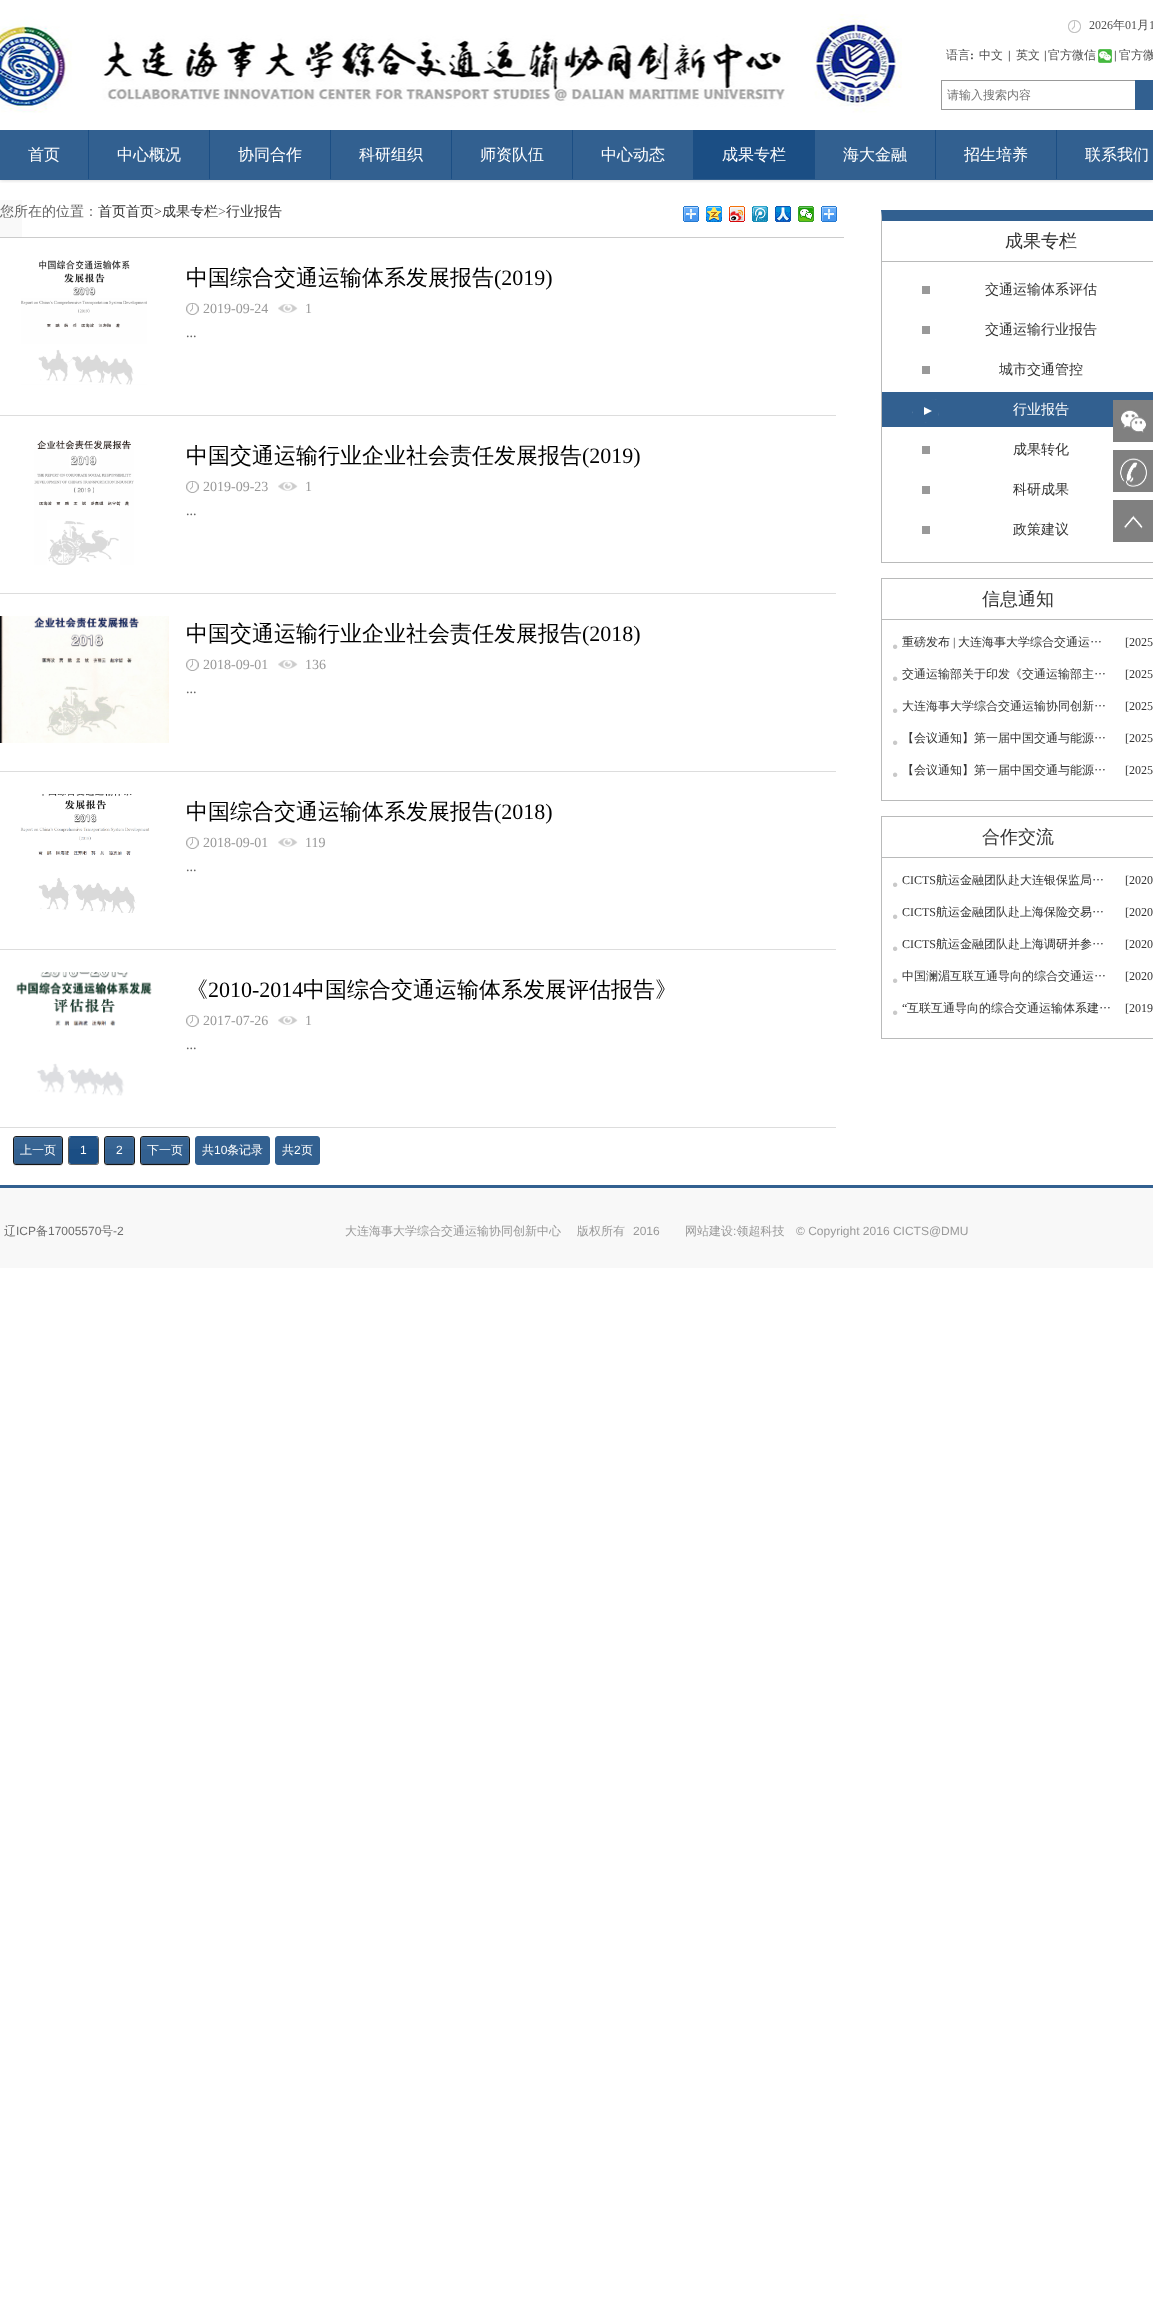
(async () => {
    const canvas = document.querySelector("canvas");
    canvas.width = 1153;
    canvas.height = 2320;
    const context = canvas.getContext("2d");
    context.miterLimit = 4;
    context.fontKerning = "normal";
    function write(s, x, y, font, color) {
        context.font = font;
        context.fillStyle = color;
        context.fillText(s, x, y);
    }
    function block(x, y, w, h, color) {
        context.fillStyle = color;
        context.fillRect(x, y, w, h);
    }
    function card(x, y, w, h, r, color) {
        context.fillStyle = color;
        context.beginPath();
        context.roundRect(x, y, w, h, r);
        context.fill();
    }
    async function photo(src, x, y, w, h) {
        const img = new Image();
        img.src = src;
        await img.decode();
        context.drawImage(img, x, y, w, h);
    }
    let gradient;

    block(0, 0, 1153, 2320, "rgb(255, 255, 255)");
    context.save();
    context.beginPath();
    context.rect(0, 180, 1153, 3);
    context.clip();
    context.fillStyle = "rgba(0, 0, 0, 0.2)";
    context.filter = "blur(2px)";
    context.beginPath();
    context.rect(0, 0, 1153, 180);
    context.fill();
    context.filter = "none";
    context.restore();
    await photo("media/1.png", 0, 14, 902, 99);
    await photo("media/2.png", 1068, 20, 13, 13);
    write("2026", 1089, 29, "12px Liberation Serif", "rgb(79, 79, 79)");
    write("年", 1113, 29, "500 12px WenQuanYi Zen Hei", "rgb(79, 79, 79)");
    write("01", 1125, 29, "12px Liberation Serif", "rgb(79, 79, 79)");
    write("月", 1137, 29, "500 12px WenQuanYi Zen Hei", "rgb(79, 79, 79)");
    write("1", 1149, 29, "12px Liberation Serif", "rgb(79, 79, 79)");
    write("语言", 946, 59, "500 12px WenQuanYi Zen Hei", "rgb(79, 79, 79)");
    write(":", 970, 59, "bold 12px Liberation Serif", "rgb(79, 79, 79)");
    write("中文", 979, 59, "500 12px WenQuanYi Zen Hei", "rgb(79, 79, 79)");
    write("|", 1008, 59, "bold 12px Liberation Serif", "rgb(79, 79, 79)");
    write("英文", 1016, 59, "500 12px WenQuanYi Zen Hei", "rgb(79, 79, 79)");
    write("|", 1044, 59, "bold 12px Liberation Serif", "rgb(79, 79, 79)");
    write("官方微信", 1048, 59, "500 12px WenQuanYi Zen Hei", "rgb(79, 79, 79)");
    await photo("media/3.png", 1098, 49, 14, 14);
    write("|", 1114, 59, "bold 12px Liberation Serif", "rgb(79, 79, 79)");
    write("官方微", 1119, 59, "500 12px WenQuanYi Zen Hei", "rgb(79, 79, 79)");
    block(941, 80, 194, 1, "rgb(153, 153, 153)");
    block(941, 109, 194, 1, "rgb(153, 153, 153)");
    block(941, 80, 1, 30, "rgb(153, 153, 153)");
    write("请输入搜索内容", 947, 99, "500 12px WenQuanYi Zen Hei", "rgb(117, 117, 117)");
    block(1135, 80, 18, 30, "rgb(50, 96, 144)");
    block(0, 130, 1153, 50, "rgb(50, 96, 144)");
    block(88, 130, 1, 49, "rgb(27, 78, 132)");
    write("首页", 28, 160, "500 16px WenQuanYi Zen Hei", "rgb(255, 255, 255)");
    block(209, 130, 1, 49, "rgb(27, 78, 132)");
    write("中心概况", 117, 160, "500 16px WenQuanYi Zen Hei", "rgb(255, 255, 255)");
    block(330, 130, 1, 49, "rgb(27, 78, 132)");
    write("协同合作", 238, 160, "500 16px WenQuanYi Zen Hei", "rgb(255, 255, 255)");
    block(451, 130, 1, 49, "rgb(27, 78, 132)");
    write("科研组织", 359, 160, "500 16px WenQuanYi Zen Hei", "rgb(255, 255, 255)");
    block(572, 130, 1, 49, "rgb(27, 78, 132)");
    write("师资队伍", 480, 160, "500 16px WenQuanYi Zen Hei", "rgb(255, 255, 255)");
    block(693, 130, 122, 49, "rgb(27, 78, 132)");
    write("中心动态", 601, 160, "500 16px WenQuanYi Zen Hei", "rgb(255, 255, 255)");
    write("成果专栏", 722, 160, "500 16px WenQuanYi Zen Hei", "rgb(255, 255, 255)");
    block(935, 130, 1, 49, "rgb(27, 78, 132)");
    write("海大金融", 843, 160, "500 16px WenQuanYi Zen Hei", "rgb(255, 255, 255)");
    block(1056, 130, 1, 49, "rgb(27, 78, 132)");
    write("招生培养", 964, 160, "500 16px WenQuanYi Zen Hei", "rgb(255, 255, 255)");
    write("联系我们", 1085, 160, "500 16px WenQuanYi Zen Hei", "rgb(255, 255, 255)");
    block(0, 237, 844, 1, "rgb(204, 204, 204)");
    block(0, 200, 22, 37, "rgb(249, 249, 249)");
    write("您所在的位置：", 0, 216, "500 14px WenQuanYi Zen Hei", "rgb(102, 102, 102)");
    write("首页首页", 98, 216, "500 14px WenQuanYi Zen Hei", "rgb(51, 51, 51)");
    write(">", 154, 216, "14px Liberation Serif", "rgb(51, 51, 51)");
    write("成果专栏", 162, 216, "500 14px WenQuanYi Zen Hei", "rgb(51, 51, 51)");
    write(">", 218, 216, "14px Liberation Serif", "rgb(102, 102, 102)");
    write("行业报告", 226, 216, "500 14px WenQuanYi Zen Hei", "rgb(51, 51, 51)");
    await photo("media/4.png", 683, 206, 16, 16);
    await photo("media/5.png", 706, 206, 16, 16);
    await photo("media/6.png", 729, 206, 16, 16);
    await photo("media/7.png", 752, 206, 16, 16);
    await photo("media/8.png", 775, 206, 16, 16);
    await photo("media/9.png", 798, 206, 16, 16);
    await photo("media/4.png", 821, 206, 16, 16);
    block(0, 415, 836, 1, "rgb(221, 221, 221)");
    await photo("media/10.png", 21, 260, 126, 125);
    write("中国综合交通运输体系发展报告", 186, 285, "500 22px WenQuanYi Zen Hei", "rgb(0, 0, 0)");
    write("(2019)", 494, 285, "22px Liberation Serif", "rgb(0, 0, 0)");
    await photo("media/11.png", 186, 303, 13, 12);
    write("2019-09-24", 203, 313, "14px Liberation Serif", "rgb(153, 153, 153)");
    await photo("media/12.png", 278, 304, 20, 9);
    write("1", 305, 313, "14px Liberation Serif", "rgb(153, 153, 153)");
    write("...", 186, 337, "14px Liberation Serif", "rgb(102, 102, 102)");
    block(0, 593, 836, 1, "rgb(221, 221, 221)");
    await photo("media/13.png", 34, 440, 100, 125);
    write("中国交通运输行业企业社会责任发展报告", 186, 463, "500 22px WenQuanYi Zen Hei", "rgb(0, 0, 0)");
    write("(2019)", 582, 463, "22px Liberation Serif", "rgb(0, 0, 0)");
    await photo("media/11.png", 186, 481, 13, 12);
    write("2019-09-23", 203, 491, "14px Liberation Serif", "rgb(153, 153, 153)");
    await photo("media/12.png", 278, 482, 20, 9);
    write("1", 305, 491, "14px Liberation Serif", "rgb(153, 153, 153)");
    write("...", 186, 515, "14px Liberation Serif", "rgb(102, 102, 102)");
    block(0, 771, 836, 1, "rgb(221, 221, 221)");
    await photo("media/14.png", 0, 616, 169, 127);
    write("中国交通运输行业企业社会责任发展报告", 186, 641, "500 22px WenQuanYi Zen Hei", "rgb(0, 0, 0)");
    write("(2018)", 582, 641, "22px Liberation Serif", "rgb(0, 0, 0)");
    await photo("media/11.png", 186, 659, 13, 12);
    write("2018-09-01", 203, 669, "14px Liberation Serif", "rgb(153, 153, 153)");
    await photo("media/12.png", 278, 660, 20, 9);
    write("136", 305, 669, "14px Liberation Serif", "rgb(153, 153, 153)");
    write("...", 186, 693, "14px Liberation Serif", "rgb(102, 102, 102)");
    block(0, 949, 836, 1, "rgb(221, 221, 221)");
    await photo("media/15.png", 20, 794, 130, 119);
    write("中国综合交通运输体系发展报告", 186, 819, "500 22px WenQuanYi Zen Hei", "rgb(0, 0, 0)");
    write("(2018)", 494, 819, "22px Liberation Serif", "rgb(0, 0, 0)");
    await photo("media/11.png", 186, 837, 13, 12);
    write("2018-09-01", 203, 847, "14px Liberation Serif", "rgb(153, 153, 153)");
    await photo("media/12.png", 278, 838, 20, 9);
    write("119", 305, 847, "14px Liberation Serif", "rgb(153, 153, 153)");
    write("...", 186, 871, "14px Liberation Serif", "rgb(102, 102, 102)");
    block(0, 1127, 836, 1, "rgb(221, 221, 221)");
    await photo("media/16.png", 16, 972, 136, 124);
    write("《", 186, 997, "500 22px WenQuanYi Zen Hei", "rgb(0, 0, 0)");
    write("2010-2014", 208, 997, "22px Liberation Serif", "rgb(0, 0, 0)");
    write("中国综合交通运输体系发展评估报告》", 303, 997, "500 22px WenQuanYi Zen Hei", "rgb(0, 0, 0)");
    await photo("media/11.png", 186, 1015, 13, 12);
    write("2017-07-26", 203, 1025, "14px Liberation Serif", "rgb(153, 153, 153)");
    await photo("media/12.png", 278, 1016, 20, 9);
    write("1", 305, 1025, "14px Liberation Serif", "rgb(153, 153, 153)");
    write("...", 186, 1049, "14px Liberation Serif", "rgb(102, 102, 102)");
    context.fillStyle = "rgba(0, 0, 0, 0.1)";
    context.filter = "blur(0.5px)";
    context.beginPath();
    context.roundRect(13, 1137, 50, 29, 3);
    context.fill();
    context.filter = "none";
    card(14, 1137, 48, 27, 2, "rgb(50, 96, 144)");
    gradient = context.createLinearGradient(38, 1137, 38, 1164);
    gradient.addColorStop(0, "rgba(255, 255, 255, 0.04)");
    gradient.addColorStop(1, "rgba(255, 255, 255, 0)");
    context.fillStyle = gradient;
    context.fillRect(14, 1137, 48, 12);
    context.fillStyle = "rgba(0, 0, 0, 0.15)";
    context.beginPath();
    context.moveTo(14, 1161);
    context.bezierCurveTo(14, 1166, 19, 1164, 23, 1164);
    context.lineTo(53, 1164);
    context.bezierCurveTo(57, 1164, 62, 1166, 62, 1161);
    context.bezierCurveTo(62, 1162, 61, 1163, 60, 1163);
    context.lineTo(16, 1163);
    context.bezierCurveTo(15, 1163, 14, 1162, 14, 1161);
    context.closePath();
    context.fill();
    context.fillStyle = "rgba(255, 255, 255, 0.04)";
    context.beginPath();
    context.moveTo(16, 1138);
    context.lineTo(60, 1138);
    context.bezierCurveTo(61, 1138, 62, 1139, 62, 1140);
    context.bezierCurveTo(62, 1135, 57, 1137, 53, 1137);
    context.lineTo(23, 1137);
    context.bezierCurveTo(19, 1137, 14, 1135, 14, 1140);
    context.bezierCurveTo(14, 1139, 15, 1138, 16, 1138);
    context.closePath();
    context.fill();
    context.strokeStyle = "rgba(255, 255, 255, 0.04)";
    context.strokeRect(14.5, 1137.5, 47, 26);
    context.beginPath();
    context.roundRect(13.5, 1136.5, 49, 28, 2.5);
    context.strokeStyle = "rgba(0, 0, 0, 0.9)";
    context.stroke();
    write("上一页", 20, 1154, "500 12px WenQuanYi Zen Hei", "rgb(255, 255, 255)");
    card(69, 1137, 29, 27, 2, "rgb(27, 78, 132)");
    gradient = context.createLinearGradient(84, 1137, 84, 1164);
    gradient.addColorStop(0, "rgba(255, 255, 255, 0.04)");
    gradient.addColorStop(1, "rgba(255, 255, 255, 0)");
    context.fillStyle = gradient;
    context.fillRect(69, 1137, 29, 12);
    context.fillStyle = "rgba(0, 0, 0, 0.05)";
    context.beginPath();
    context.moveTo(71, 1138);
    context.lineTo(96, 1138);
    context.bezierCurveTo(97, 1138, 98, 1139, 98, 1140);
    context.bezierCurveTo(98, 1136, 95.5, 1137, 92, 1137);
    context.lineTo(75, 1137);
    context.bezierCurveTo(71.5, 1137, 69, 1136, 69, 1140);
    context.bezierCurveTo(69, 1139, 70, 1138, 71, 1138);
    context.closePath();
    context.fill();
    context.beginPath();
    context.moveTo(69, 1137);
    context.bezierCurveTo(69.5, 1137, 70.5, 1136.5, 71, 1136.5);
    context.lineTo(96, 1136.5);
    context.bezierCurveTo(96.5, 1136.5, 97.5, 1137, 98, 1137);
    context.strokeStyle = "rgb(27, 78, 132)";
    context.stroke();
    context.beginPath();
    context.moveTo(98, 1137);
    context.bezierCurveTo(98, 1137.5, 98.5, 1138.5, 98.5, 1139);
    context.lineTo(98.5, 1162);
    context.bezierCurveTo(98.5, 1162.5, 98, 1163.5, 98, 1164);
    context.strokeStyle = "rgb(89, 89, 89)";
    context.stroke();
    context.beginPath();
    context.moveTo(98, 1164);
    context.bezierCurveTo(97.5, 1164, 96.5, 1164.5, 96, 1164.5);
    context.lineTo(71, 1164.5);
    context.bezierCurveTo(70.5, 1164.5, 69.5, 1164, 69, 1164);
    context.strokeStyle = "rgb(102, 102, 102)";
    context.stroke();
    context.beginPath();
    context.moveTo(69, 1164);
    context.bezierCurveTo(69, 1163.5, 68.5, 1162.5, 68.5, 1162);
    context.lineTo(68.5, 1139);
    context.bezierCurveTo(68.5, 1138.5, 69, 1137.5, 69, 1137);
    context.strokeStyle = "rgb(89, 89, 89)";
    context.stroke();
    write("1", 80, 1154, "12px Liberation Sans", "rgb(255, 255, 255)");
    context.fillStyle = "rgba(0, 0, 0, 0.1)";
    context.filter = "blur(0.5px)";
    context.beginPath();
    context.roundRect(104, 1137, 31, 29, 3);
    context.fill();
    context.filter = "none";
    card(105, 1137, 29, 27, 2, "rgb(50, 96, 144)");
    gradient = context.createLinearGradient(120, 1137, 120, 1164);
    gradient.addColorStop(0, "rgba(255, 255, 255, 0.04)");
    gradient.addColorStop(1, "rgba(255, 255, 255, 0)");
    context.fillStyle = gradient;
    context.fillRect(105, 1137, 29, 12);
    context.fillStyle = "rgba(0, 0, 0, 0.15)";
    context.beginPath();
    context.moveTo(105, 1161);
    context.bezierCurveTo(105, 1165, 107.5, 1164, 111, 1164);
    context.lineTo(128, 1164);
    context.bezierCurveTo(131.5, 1164, 134, 1165, 134, 1161);
    context.bezierCurveTo(134, 1162, 133, 1163, 132, 1163);
    context.lineTo(107, 1163);
    context.bezierCurveTo(106, 1163, 105, 1162, 105, 1161);
    context.closePath();
    context.fill();
    context.fillStyle = "rgba(255, 255, 255, 0.04)";
    context.beginPath();
    context.moveTo(107, 1138);
    context.lineTo(132, 1138);
    context.bezierCurveTo(133, 1138, 134, 1139, 134, 1140);
    context.bezierCurveTo(134, 1136, 131.5, 1137, 128, 1137);
    context.lineTo(111, 1137);
    context.bezierCurveTo(107.5, 1137, 105, 1136, 105, 1140);
    context.bezierCurveTo(105, 1139, 106, 1138, 107, 1138);
    context.closePath();
    context.fill();
    context.strokeStyle = "rgba(255, 255, 255, 0.04)";
    context.strokeRect(105.5, 1137.5, 28, 26);
    context.beginPath();
    context.roundRect(104.5, 1136.5, 30, 28, 2.5);
    context.strokeStyle = "rgba(0, 0, 0, 0.9)";
    context.stroke();
    write("2", 116, 1154, "12px Liberation Sans", "rgb(255, 255, 255)");
    context.fillStyle = "rgba(0, 0, 0, 0.1)";
    context.filter = "blur(0.5px)";
    context.beginPath();
    context.roundRect(140, 1137, 50, 29, 3);
    context.fill();
    context.filter = "none";
    card(141, 1137, 48, 27, 2, "rgb(50, 96, 144)");
    gradient = context.createLinearGradient(165, 1137, 165, 1164);
    gradient.addColorStop(0, "rgba(255, 255, 255, 0.04)");
    gradient.addColorStop(1, "rgba(255, 255, 255, 0)");
    context.fillStyle = gradient;
    context.fillRect(141, 1137, 48, 12);
    context.fillStyle = "rgba(0, 0, 0, 0.15)";
    context.beginPath();
    context.moveTo(141, 1161);
    context.bezierCurveTo(141, 1166, 146, 1164, 150, 1164);
    context.lineTo(180, 1164);
    context.bezierCurveTo(184, 1164, 189, 1166, 189, 1161);
    context.bezierCurveTo(189, 1162, 188, 1163, 187, 1163);
    context.lineTo(143, 1163);
    context.bezierCurveTo(142, 1163, 141, 1162, 141, 1161);
    context.closePath();
    context.fill();
    context.fillStyle = "rgba(255, 255, 255, 0.04)";
    context.beginPath();
    context.moveTo(143, 1138);
    context.lineTo(187, 1138);
    context.bezierCurveTo(188, 1138, 189, 1139, 189, 1140);
    context.bezierCurveTo(189, 1135, 184, 1137, 180, 1137);
    context.lineTo(150, 1137);
    context.bezierCurveTo(146, 1137, 141, 1135, 141, 1140);
    context.bezierCurveTo(141, 1139, 142, 1138, 143, 1138);
    context.closePath();
    context.fill();
    context.strokeStyle = "rgba(255, 255, 255, 0.04)";
    context.strokeRect(141.5, 1137.5, 47, 26);
    context.beginPath();
    context.roundRect(140.5, 1136.5, 49, 28, 2.5);
    context.strokeStyle = "rgba(0, 0, 0, 0.9)";
    context.stroke();
    write("下一页", 147, 1154, "500 12px WenQuanYi Zen Hei", "rgb(255, 255, 255)");
    context.fillStyle = "rgb(50, 96, 144)";
    context.beginPath();
    context.roundRect(195.5, 1136.5, 74, 28, 2.5);
    context.fill();
    context.strokeStyle = "rgb(50, 96, 144)";
    context.stroke();
    write("共", 202, 1154, "500 12px WenQuanYi Zen Hei", "rgb(255, 255, 255)");
    write("10", 214, 1154, "12px Liberation Sans", "rgb(255, 255, 255)");
    write("条记录", 227, 1154, "500 12px WenQuanYi Zen Hei", "rgb(255, 255, 255)");
    context.fillStyle = "rgb(50, 96, 144)";
    context.beginPath();
    context.roundRect(275.5, 1136.5, 44, 28, 2.5);
    context.fill();
    context.stroke();
    write("共", 282, 1154, "500 12px WenQuanYi Zen Hei", "rgb(255, 255, 255)");
    write("2", 294, 1154, "12px Liberation Sans", "rgb(255, 255, 255)");
    write("页", 301, 1154, "500 12px WenQuanYi Zen Hei", "rgb(255, 255, 255)");
    context.fillStyle = "rgb(50, 96, 144)";
    context.beginPath();
    context.moveTo(881, 210);
    context.lineTo(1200, 210);
    context.lineTo(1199, 221);
    context.lineTo(882, 221);
    context.closePath();
    context.fill();
    block(881, 562, 272, 1, "rgb(185, 186, 186)");
    context.beginPath();
    context.moveTo(881, 563);
    context.lineTo(881, 210);
    context.lineTo(882, 221);
    context.lineTo(882, 562);
    context.closePath();
    context.fill();
    block(882, 261, 271, 1, "rgb(185, 186, 186)");
    write("成果专栏", 1005, 247, "500 18px WenQuanYi Zen Hei", "rgb(51, 51, 51)");
    block(922, 286, 8, 8, "rgb(153, 153, 153)");
    write("交通运输体系评估", 985, 294, "500 14px WenQuanYi Zen Hei", "rgb(51, 51, 51)");
    block(922, 326, 8, 8, "rgb(153, 153, 153)");
    write("交通运输行业报告", 985, 334, "500 14px WenQuanYi Zen Hei", "rgb(51, 51, 51)");
    block(922, 366, 8, 8, "rgb(153, 153, 153)");
    write("城市交通管控", 999, 374, "500 14px WenQuanYi Zen Hei", "rgb(51, 51, 51)");
    block(882, 392, 271, 35, "rgb(50, 96, 144)");
    await photo("media/17.png", 912, 399, 27, 24);
    write("行业报告", 1013, 414, "500 14px WenQuanYi Zen Hei", "rgb(255, 255, 255)");
    block(922, 446, 8, 8, "rgb(153, 153, 153)");
    write("成果转化", 1013, 454, "500 14px WenQuanYi Zen Hei", "rgb(51, 51, 51)");
    block(922, 486, 8, 8, "rgb(153, 153, 153)");
    write("科研成果", 1013, 494, "500 14px WenQuanYi Zen Hei", "rgb(51, 51, 51)");
    block(922, 526, 8, 8, "rgb(153, 153, 153)");
    write("政策建议", 1013, 534, "500 14px WenQuanYi Zen Hei", "rgb(51, 51, 51)");
    context.strokeStyle = "rgb(185, 186, 186)";
    context.strokeRect(881.5, 578.5, 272, 222);
    block(882, 619, 271, 1, "rgb(185, 186, 186)");
    write("信息通知", 982, 605, "500 18px WenQuanYi Zen Hei", "rgb(51, 51, 51)");
    await photo("media/18.png", 893, 644, 5, 5);
    write("重磅发布", 902, 646, "500 12px WenQuanYi Zen Hei", "rgb(51, 51, 51)");
    write("|", 953, 646, "12px Liberation Serif", "rgb(51, 51, 51)");
    write("大连海事大学综合交通运…", 958, 646, "500 12px WenQuanYi Zen Hei", "rgb(51, 51, 51)");
    write("[2025", 1125, 646, "12px Liberation Serif", "rgb(51, 51, 51)");
    await photo("media/18.png", 893, 676, 5, 5);
    write("交通运输部关于印发《交通运输部主…", 902, 678, "500 12px WenQuanYi Zen Hei", "rgb(51, 51, 51)");
    write("[2025", 1125, 678, "12px Liberation Serif", "rgb(51, 51, 51)");
    await photo("media/18.png", 893, 708, 5, 5);
    write("大连海事大学综合交通运输协同创新…", 902, 710, "500 12px WenQuanYi Zen Hei", "rgb(51, 51, 51)");
    write("[2025", 1125, 710, "12px Liberation Serif", "rgb(51, 51, 51)");
    await photo("media/18.png", 893, 740, 5, 5);
    write("【会议通知】第一届中国交通与能源…", 902, 742, "500 12px WenQuanYi Zen Hei", "rgb(51, 51, 51)");
    write("[2025", 1125, 742, "12px Liberation Serif", "rgb(51, 51, 51)");
    await photo("media/18.png", 893, 772, 5, 5);
    write("【会议通知】第一届中国交通与能源…", 902, 774, "500 12px WenQuanYi Zen Hei", "rgb(51, 51, 51)");
    write("[2025", 1125, 774, "12px Liberation Serif", "rgb(51, 51, 51)");
    context.strokeRect(881.5, 816.5, 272, 222);
    block(882, 857, 271, 1, "rgb(185, 186, 186)");
    write("合作交流", 982, 843, "500 18px WenQuanYi Zen Hei", "rgb(51, 51, 51)");
    await photo("media/18.png", 893, 882, 5, 5);
    write("CICTS", 902, 884, "12px Liberation Serif", "rgb(51, 51, 51)");
    write("航运金融团队赴大连银保监局…", 936, 884, "500 12px WenQuanYi Zen Hei", "rgb(51, 51, 51)");
    write("[2020", 1125, 884, "12px Liberation Serif", "rgb(51, 51, 51)");
    await photo("media/18.png", 893, 914, 5, 5);
    write("CICTS", 902, 916, "12px Liberation Serif", "rgb(51, 51, 51)");
    write("航运金融团队赴上海保险交易…", 936, 916, "500 12px WenQuanYi Zen Hei", "rgb(51, 51, 51)");
    write("[2020", 1125, 916, "12px Liberation Serif", "rgb(51, 51, 51)");
    await photo("media/18.png", 893, 946, 5, 5);
    write("CICTS", 902, 948, "12px Liberation Serif", "rgb(51, 51, 51)");
    write("航运金融团队赴上海调研并参…", 936, 948, "500 12px WenQuanYi Zen Hei", "rgb(51, 51, 51)");
    write("[2020", 1125, 948, "12px Liberation Serif", "rgb(51, 51, 51)");
    await photo("media/18.png", 893, 978, 5, 5);
    write("中国澜湄互联互通导向的综合交通运…", 902, 980, "500 12px WenQuanYi Zen Hei", "rgb(51, 51, 51)");
    write("[2020", 1125, 980, "12px Liberation Serif", "rgb(51, 51, 51)");
    await photo("media/18.png", 893, 1010, 5, 5);
    write("“", 902, 1012, "12px Liberation Serif", "rgb(51, 51, 51)");
    write("互联互通导向的综合交通运输体系建…", 907, 1012, "500 12px WenQuanYi Zen Hei", "rgb(51, 51, 51)");
    write("[2019", 1125, 1012, "12px Liberation Serif", "rgb(51, 51, 51)");
    await photo("media/19.png", 1113, 400, 40, 42);
    await photo("media/20.png", 1113, 450, 40, 42);
    await photo("media/21.png", 1113, 500, 40, 42);
    block(0, 1188, 1153, 80, "rgb(248, 248, 248)");
    block(0, 1185, 1153, 3, "rgb(50, 96, 144)");
    write("辽", 4, 1235, "500 12px WenQuanYi Zen Hei", "rgb(108, 108, 108)");
    write("ICP", 16, 1235, "12px Liberation Sans", "rgb(108, 108, 108)");
    write("备", 36, 1235, "500 12px WenQuanYi Zen Hei", "rgb(108, 108, 108)");
    write("17005570", 48, 1235, "12px Liberation Sans", "rgb(108, 108, 108)");
    write("号", 101, 1235, "500 12px WenQuanYi Zen Hei", "rgb(108, 108, 108)");
    write("-2", 113, 1235, "12px Liberation Sans", "rgb(108, 108, 108)");
    write("大连海事大学综合交通运输协同创新中心", 345, 1235, "500 12px WenQuanYi Zen Hei", "rgb(153, 153, 153)");
    write("版权所有", 577, 1235, "500 12px WenQuanYi Zen Hei", "rgb(153, 153, 153)");
    write("2016", 633, 1235, "12px Liberation Sans", "rgb(153, 153, 153)");
    write("网站建设 领超科技", 685, 1235, "500 12px WenQuanYi Zen Hei", "rgb(153, 153, 153)");
    write("© Copyright 2016 CICTS@DMU", 796, 1235, "12px Liberation Sans", "rgb(153, 153, 153)");
    write(":", 733, 1235, "12px Liberation Sans", "rgb(153, 153, 153)");
})();
